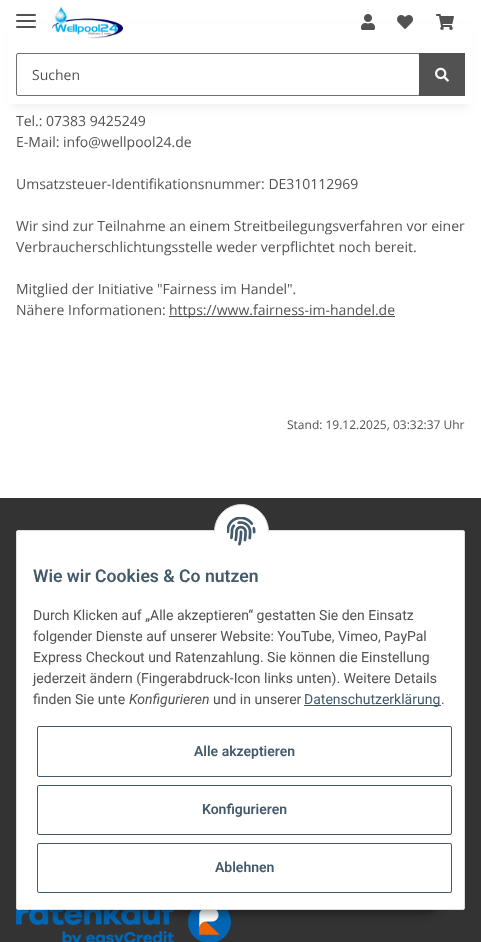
(async () => {
    const canvas = document.querySelector("canvas");
    canvas.width = 481;
    canvas.height = 942;
    const context = canvas.getContext("2d");
    context.miterLimit = 4;
    context.fontKerning = "normal";
    function write(s, x, y, font, color) {
        context.font = font;
        context.fillStyle = color;
        context.fillText(s, x, y);
    }
    function block(x, y, w, h, color) {
        context.fillStyle = color;
        context.fillRect(x, y, w, h);
    }
    function card(x, y, w, h, r, color) {
        context.fillStyle = color;
        context.beginPath();
        context.roundRect(x, y, w, h, r);
        context.fill();
    }
    async function photo(src, x, y, w, h) {
        const img = new Image();
        img.src = src;
        await img.decode();
        context.drawImage(img, x, y, w, h);
    }

    block(0, 0, 481, 942, "rgb(255, 255, 255)");
    context.fillStyle = "rgba(0, 0, 0, 0.06)";
    context.filter = "blur(4.5px)";
    context.beginPath();
    context.rect(12, 28, 457, 80);
    context.fill();
    context.filter = "none";
    block(8, 24, 465, 80, "rgb(255, 255, 255)");
    card(16, 20, 20, 2, 1, "rgb(82, 82, 82)");
    card(16, 14, 20, 2, 1, "rgb(82, 82, 82)");
    card(16, 26, 20, 2, 1, "rgb(82, 82, 82)");
    await photo("media/1.png", 52, 6, 71, 33);
    await photo("media/2.png", 361, 14, 14, 16);
    await photo("media/3.png", 397, 15, 16, 14);
    await photo("media/4.png", 436, 14, 18, 16);
    context.beginPath();
    context.roundRect(16.5, 53.5, 403, 42, 1.5);
    context.strokeStyle = "rgb(112, 112, 112)";
    context.stroke();
    write("Suchen", 32, 80, "14px Open Sans", "rgb(82, 82, 82)");
    block(419, 53, 46, 43, "rgb(82, 82, 82)");
    await photo("media/5.png", 435, 67, 14, 15);
    write("Tel.: 07383 9425249", 16, 126, "14px Open Sans", "rgb(82, 82, 82)");
    write("E-Mail: info@wellpool24.de", 16, 147, "14px Open Sans", "rgb(82, 82, 82)");
    write("Umsatzsteuer-Identifikationsnummer: DE310112969", 16, 189, "14px Open Sans", "rgb(82, 82, 82)");
    write("Wir sind zur Teilnahme an einem Streitbeilegungsverfahren vor einer", 16, 231, "14px Open Sans", "rgb(82, 82, 82)");
    write("Verbraucherschlichtungsstelle weder verpflichtet noch bereit.", 16, 252, "14px Open Sans", "rgb(82, 82, 82)");
    write("Mitglied der Initiative \"Fairness im Handel\".", 16, 294, "14px Open Sans", "rgb(82, 82, 82)");
    write("Nähere Informationen:", 16, 315, "14px Open Sans", "rgb(82, 82, 82)");
    block(169, 316, 226, 1, "rgb(82, 82, 82)");
    write("https://www.fairness-im-handel.de", 169, 315, "14px Open Sans", "rgb(82, 82, 82)");
    write("Stand: 19.12.2025, 03:32:37 Uhr", 287, 429, "12px Open Sans", "rgb(82, 82, 82)");
    block(0, 498, 481, 444, "rgb(51, 51, 51)");
    await photo("media/6.png", 16, 908, 215, 34);
    context.fillStyle = "rgba(0, 0, 0, 0.45)";
    context.filter = "blur(5px)";
    context.beginPath();
    context.roundRect(39, 881, 403, 32, 16);
    context.fill();
    context.filter = "none";
    context.fillStyle = "rgb(255, 255, 255)";
    context.beginPath();
    context.roundRect(16.5, 530.5, 448, 379, 1.5);
    context.fill();
    context.strokeStyle = "rgb(221, 221, 221)";
    context.stroke();
    context.beginPath();
    context.arc(241.5, 531.5, 27, 0, Math.PI * 2);
    context.fill();
    context.stroke();
    block(214, 532, 55, 27, "rgb(255, 255, 255)");
    await photo("media/7.png", 227, 517, 29, 29);
    write("Wie wir Cookies & Co nutzen", 33, 582, "600 17.6px Roboto", "rgb(67, 90, 107)");
    write("Durch Klicken auf „Alle akzeptieren“ gestatten Sie den Einsatz", 33, 620, "14px Roboto", "rgb(82, 82, 82)");
    write("folgender Dienste auf unserer Website: YouTube, Vimeo, PayPal", 33, 641, "14px Roboto", "rgb(82, 82, 82)");
    write("Express Checkout und Ratenzahlung. Sie können die Einstellung", 33, 662, "14px Roboto", "rgb(82, 82, 82)");
    write("jederzeit ändern (Fingerabdruck-Icon links unten). Weitere Details", 33, 683, "14px Roboto", "rgb(82, 82, 82)");
    write("finden Sie unte", 33, 704, "14px Roboto", "rgb(82, 82, 82)");
    write("Konfigurieren", 129, 704, "italic 14px Roboto", "rgb(82, 82, 82)");
    write("und in unserer", 213, 704, "14px Roboto", "rgb(82, 82, 82)");
    block(304, 705, 137, 1, "rgb(67, 90, 107)");
    write("Datenschutzerklärung", 304, 704, "14px Roboto", "rgb(67, 90, 107)");
    write(".", 441, 704, "14px Roboto", "rgb(82, 82, 82)");
    context.beginPath();
    context.roundRect(37.5, 726.5, 414, 50, 1.5);
    context.strokeStyle = "rgb(67, 90, 107)";
    context.stroke();
    write("Alle akzeptieren", 194, 756, "600 14px Roboto", "rgb(67, 90, 107)");
    context.beginPath();
    context.roundRect(37.5, 785.5, 414, 49, 1.5);
    context.stroke();
    write("Konfigurieren", 202, 814, "600 14px Roboto", "rgb(67, 90, 107)");
    context.beginPath();
    context.roundRect(37.5, 843.5, 414, 49, 1.5);
    context.stroke();
    write("Ablehnen", 215, 872, "600 14px Roboto", "rgb(67, 90, 107)");
})();
